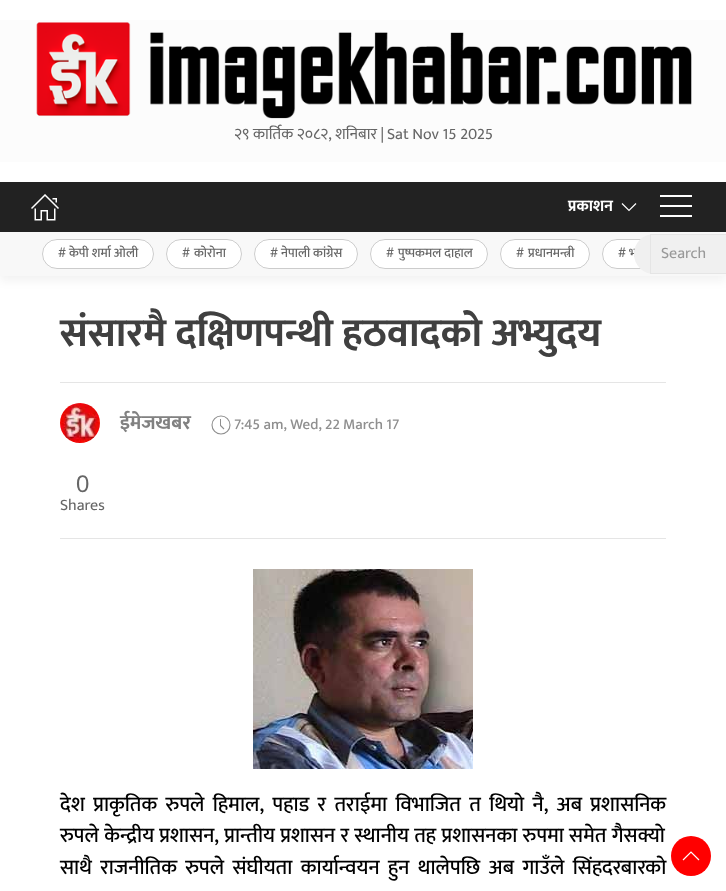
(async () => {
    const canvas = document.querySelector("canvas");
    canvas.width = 726;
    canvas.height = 891;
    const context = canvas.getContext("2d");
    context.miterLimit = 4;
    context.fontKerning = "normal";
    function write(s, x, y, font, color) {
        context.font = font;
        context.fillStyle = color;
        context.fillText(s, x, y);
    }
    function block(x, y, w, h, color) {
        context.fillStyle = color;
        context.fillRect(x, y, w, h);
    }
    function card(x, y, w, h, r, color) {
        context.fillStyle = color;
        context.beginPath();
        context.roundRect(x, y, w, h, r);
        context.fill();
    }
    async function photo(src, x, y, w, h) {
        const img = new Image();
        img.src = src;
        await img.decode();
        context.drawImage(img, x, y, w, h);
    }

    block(0, 0, 726, 891, "rgb(255, 255, 255)");
    block(0, 20, 726, 142, "rgb(252, 252, 252)");
    await photo("media/1.png", 36, 22, 656, 97);
    write("२९ कार्तिक २०८२, शनिबार |", 234, 139, "16px Mukta", "rgb(102, 102, 102)");
    write("Sat Nov 15 2025", 387, 139, "16px Mukta", "rgb(102, 102, 102)");
    context.fillStyle = "rgba(0, 0, 0, 0.05)";
    context.filter = "blur(5px)";
    context.beginPath();
    context.rect(0, 237, 726, 44);
    context.fill();
    context.filter = "none";
    block(0, 182, 726, 50, "rgb(34, 34, 34)");
    await photo("media/2.png", 31, 194, 28, 27);
    write("प्रकाशन", 568, 211, "bold 16px Mukta", "rgb(255, 255, 255)");
    context.beginPath();
    context.moveTo(636, 203.5);
    context.lineTo(629, 210.5);
    context.lineTo(622, 203.5);
    context.strokeStyle = "rgb(255, 255, 255)";
    context.lineWidth = 1.2;
    context.stroke();
    block(660, 195, 32, 2, "rgb(255, 255, 255)");
    block(660, 205, 32, 2, "rgb(255, 255, 255)");
    block(660, 215, 32, 2, "rgb(255, 255, 255)");
    block(0, 232, 726, 44, "rgb(248, 248, 248)");
    card(42, 239, 112, 30, 15, "rgb(255, 255, 255)");
    context.beginPath();
    context.roundRect(42.5, 239.5, 111, 29, 14.5);
    context.strokeStyle = "rgba(0, 0, 0, 0.2)";
    context.lineWidth = 1;
    context.stroke();
    write("#", 58, 257, "500 13px Mukta", "rgb(102, 102, 102)");
    write("केपी शर्मा ओली", 69, 257, "500 13px Mukta", "rgb(102, 102, 102)");
    card(166, 239, 76, 30, 15, "rgb(255, 255, 255)");
    context.beginPath();
    context.roundRect(166.5, 239.5, 75, 29, 14.5);
    context.stroke();
    write("#", 182, 257, "500 13px Mukta", "rgb(102, 102, 102)");
    write("कोरोना", 194, 257, "500 13px Mukta", "rgb(102, 102, 102)");
    card(254, 239, 104, 30, 15, "rgb(255, 255, 255)");
    context.beginPath();
    context.roundRect(254.5, 239.5, 103, 29, 14.5);
    context.stroke();
    write("#", 270, 257, "500 13px Mukta", "rgb(102, 102, 102)");
    write("नेपाली कांग्रेस", 281, 257, "500 13px Mukta", "rgb(102, 102, 102)");
    card(370, 239, 118, 30, 15, "rgb(255, 255, 255)");
    context.beginPath();
    context.roundRect(370.5, 239.5, 117, 29, 14.5);
    context.stroke();
    write("#", 386, 257, "500 13px Mukta", "rgb(102, 102, 102)");
    write("पुष्पकमल दाहाल", 398, 257, "500 13px Mukta", "rgb(102, 102, 102)");
    card(500, 239, 90, 30, 15, "rgb(255, 255, 255)");
    context.beginPath();
    context.roundRect(500.5, 239.5, 89, 29, 14.5);
    context.stroke();
    write("#", 516, 257, "500 13px Mukta", "rgb(102, 102, 102)");
    write("प्रधानमन्त्री", 528, 257, "500 13px Mukta", "rgb(102, 102, 102)");
    card(602, 239, 67, 30, 15, "rgb(255, 255, 255)");
    context.beginPath();
    context.roundRect(602.5, 239.5, 66, 29, 14.5);
    context.stroke();
    write("#", 618, 257, "500 13px Mukta", "rgb(102, 102, 102)");
    write("भ", 629, 257, "500 13px Mukta", "rgb(102, 102, 102)");
    card(634, 234, 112, 40, 20, "rgb(240, 240, 240)");
    context.strokeStyle = "rgb(229, 229, 229)";
    context.strokeRect(650.5, 234.5, 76, 39);
    write("Search", 661, 258, "16px Mukta", "rgb(153, 153, 153)");
    write("संसारमै दक्षिणपन्थी हठवादको अभ्युदय", 60, 346, "bold 40px Mukta", "rgb(64, 64, 64)");
    block(60, 382, 606, 1, "rgb(229, 229, 229)");
    await photo("media/3.png", 60, 403, 40, 40);
    write("ईमेजखबर", 120, 429, "bold 20px Mukta", "rgb(129, 129, 129)");
    context.beginPath();
    context.arc(221, 425, 9, 0, Math.PI * 2);
    context.strokeStyle = "rgb(143, 143, 143)";
    context.lineWidth = 1.1;
    context.stroke();
    block(220, 419, 1, 7, "rgb(143, 143, 143)");
    context.beginPath();
    context.moveTo(224, 429);
    context.lineTo(220.5, 425.5);
    context.stroke();
    write("7:45 am, Wed, 22 March 17", 234, 429, "500 15px Mukta", "rgb(143, 143, 143)");
    write("0", 76, 492, "24px Liberation Sans", "rgb(102, 102, 102)");
    write("Shares", 60, 510, "16px Mukta", "rgb(102, 102, 102)");
    block(60, 538, 606, 1, "rgb(229, 229, 229)");
    await photo("media/4.png", 253, 569, 220, 200);
    context.wordSpacing = "3.6px";
    write("देश प्राकृतिक रुपले हिमाल, पहाड र तराईमा विभाजित त थियो नै, अब प्रशासनिक", 60, 811, "500 20.8px Mukta", "rgb(0, 0, 0)");
    context.wordSpacing = "0.5px";
    write("रुपले केन्द्रीय प्रशासन, प्रान्तीय प्रशासन र स्थानीय तह प्रशासनका रुपमा समेत गैसक्यो", 60, 842, "500 20.8px Mukta", "rgb(0, 0, 0)");
    context.wordSpacing = "3.6px";
    write("साथै राजनीतिक रुपले संघीयता कार्यान्वयन हुन थालेपछि अब गाउँले सिंहदरबारको", 60, 874, "500 20.8px Mukta", "rgb(0, 0, 0)");
    context.fillStyle = "rgb(255, 0, 0)";
    context.beginPath();
    context.arc(691, 856, 20, 0, Math.PI * 2);
    context.fill();
    context.beginPath();
    context.moveTo(683, 860);
    context.lineTo(691, 852);
    context.lineTo(699, 860);
    context.strokeStyle = "rgb(255, 255, 255)";
    context.lineWidth = 1.2;
    context.stroke();
})();
